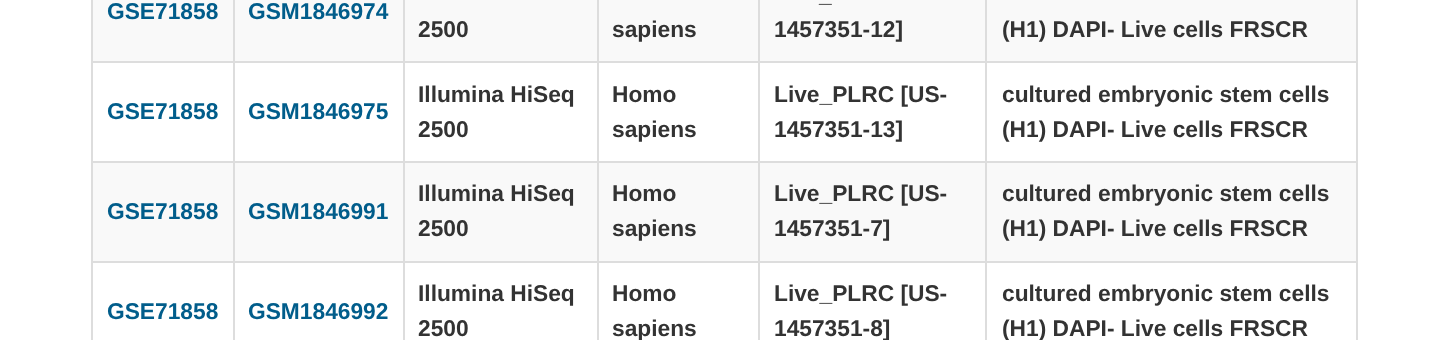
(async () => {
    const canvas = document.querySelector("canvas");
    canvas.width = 1448;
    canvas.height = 340;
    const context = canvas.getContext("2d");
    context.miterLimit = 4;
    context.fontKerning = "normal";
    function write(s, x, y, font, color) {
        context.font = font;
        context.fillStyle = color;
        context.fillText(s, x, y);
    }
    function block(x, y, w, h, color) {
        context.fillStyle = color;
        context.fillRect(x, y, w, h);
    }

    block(0, 0, 1448, 340, "rgb(255, 255, 255)");
    context.fillStyle = "rgb(221, 221, 221)";
    context.beginPath();
    context.moveTo(98, -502);
    context.lineTo(1351, -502);
    context.bezierCurveTo(1355, -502, 1358, -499, 1358, -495);
    context.lineTo(1358, 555);
    context.bezierCurveTo(1358, 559, 1355, 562, 1351, 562);
    context.lineTo(98, 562);
    context.bezierCurveTo(94, 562, 91, 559, 91, 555);
    context.lineTo(91, -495);
    context.bezierCurveTo(91, -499, 94, -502, 98, -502);
    context.closePath();
    context.moveTo(98, -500);
    context.lineTo(1351, -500);
    context.bezierCurveTo(1354, -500, 1356, -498, 1356, -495);
    context.lineTo(1356, 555);
    context.bezierCurveTo(1356, 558, 1354, 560, 1351, 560);
    context.lineTo(98, 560);
    context.bezierCurveTo(94, 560, 91, 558, 91, 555);
    context.lineTo(91, -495);
    context.bezierCurveTo(91, -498, 94, -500, 98, -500);
    context.closePath();
    context.fill("evenodd");
    block(93, 0, 140, 61, "rgb(249, 249, 249)");
    block(91, 0, 2, 61, "rgb(221, 221, 221)");
    write("GSE71858", 107, 19, "bold 22.75px Liberation Sans", "rgb(1, 93, 139)");
    block(235, 0, 168, 61, "rgb(249, 249, 249)");
    block(233, 0, 2, 61, "rgb(221, 221, 221)");
    write("GSM1846974", 248, 19, "bold 22.75px Liberation Sans", "rgb(1, 93, 139)");
    block(405, 0, 192, 61, "rgb(249, 249, 249)");
    block(403, 0, 2, 61, "rgb(221, 221, 221)");
    write("2500", 418, 37, "bold 22.75px Liberation Sans", "rgb(51, 51, 51)");
    block(599, 0, 159, 61, "rgb(249, 249, 249)");
    block(597, 0, 2, 61, "rgb(221, 221, 221)");
    write("sapiens", 612, 37, "bold 22.75px Liberation Sans", "rgb(51, 51, 51)");
    block(760, 0, 225, 61, "rgb(249, 249, 249)");
    block(758, 0, 2, 61, "rgb(221, 221, 221)");
    write("_", 819, 2, "bold 22.75px Liberation Sans", "rgb(51, 51, 51)");
    write("1457351-12]", 774, 37, "bold 22.75px Liberation Sans", "rgb(51, 51, 51)");
    block(987, 0, 369, 61, "rgb(249, 249, 249)");
    block(985, 0, 2, 61, "rgb(221, 221, 221)");
    write("(H1) DAPI- Live cells FRSCR", 1002, 37, "bold 22.75px Liberation Sans", "rgb(51, 51, 51)");
    block(91, 61, 1265, 2, "rgb(221, 221, 221)");
    block(91, 61, 2, 100, "rgb(221, 221, 221)");
    write("GSE71858", 107, 119, "bold 22.75px Liberation Sans", "rgb(1, 93, 139)");
    block(233, 61, 2, 100, "rgb(221, 221, 221)");
    write("GSM1846975", 248, 119, "bold 22.75px Liberation Sans", "rgb(1, 93, 139)");
    block(403, 61, 2, 100, "rgb(221, 221, 221)");
    write("Illumina HiSeq", 418, 102, "bold 22.75px Liberation Sans", "rgb(51, 51, 51)");
    write("2500", 418, 137, "bold 22.75px Liberation Sans", "rgb(51, 51, 51)");
    block(597, 61, 2, 100, "rgb(221, 221, 221)");
    write("Homo", 612, 102, "bold 22.75px Liberation Sans", "rgb(51, 51, 51)");
    write("sapiens", 612, 137, "bold 22.75px Liberation Sans", "rgb(51, 51, 51)");
    block(758, 61, 2, 100, "rgb(221, 221, 221)");
    write("Live_PLRC [US-", 774, 102, "bold 22.75px Liberation Sans", "rgb(51, 51, 51)");
    write("1457351-13]", 774, 137, "bold 22.75px Liberation Sans", "rgb(51, 51, 51)");
    block(985, 61, 2, 100, "rgb(221, 221, 221)");
    write("cultured embryonic stem cells", 1002, 102, "bold 22.75px Liberation Sans", "rgb(51, 51, 51)");
    write("(H1) DAPI- Live cells FRSCR", 1002, 137, "bold 22.75px Liberation Sans", "rgb(51, 51, 51)");
    block(93, 163, 140, 98, "rgb(249, 249, 249)");
    block(91, 161, 1265, 2, "rgb(221, 221, 221)");
    block(91, 161, 2, 100, "rgb(221, 221, 221)");
    write("GSE71858", 107, 219, "bold 22.75px Liberation Sans", "rgb(1, 93, 139)");
    block(235, 163, 168, 98, "rgb(249, 249, 249)");
    block(233, 161, 2, 100, "rgb(221, 221, 221)");
    write("GSM1846991", 248, 219, "bold 22.75px Liberation Sans", "rgb(1, 93, 139)");
    block(405, 163, 192, 98, "rgb(249, 249, 249)");
    block(403, 161, 2, 100, "rgb(221, 221, 221)");
    write("Illumina HiSeq", 418, 201, "bold 22.75px Liberation Sans", "rgb(51, 51, 51)");
    write("2500", 418, 236, "bold 22.75px Liberation Sans", "rgb(51, 51, 51)");
    block(599, 163, 159, 98, "rgb(249, 249, 249)");
    block(597, 161, 2, 100, "rgb(221, 221, 221)");
    write("Homo", 612, 201, "bold 22.75px Liberation Sans", "rgb(51, 51, 51)");
    write("sapiens", 612, 236, "bold 22.75px Liberation Sans", "rgb(51, 51, 51)");
    block(760, 163, 225, 98, "rgb(249, 249, 249)");
    block(758, 161, 2, 100, "rgb(221, 221, 221)");
    write("Live_PLRC [US-", 774, 201, "bold 22.75px Liberation Sans", "rgb(51, 51, 51)");
    write("1457351-7]", 774, 236, "bold 22.75px Liberation Sans", "rgb(51, 51, 51)");
    block(987, 163, 369, 98, "rgb(249, 249, 249)");
    block(985, 161, 2, 100, "rgb(221, 221, 221)");
    write("cultured embryonic stem cells", 1002, 201, "bold 22.75px Liberation Sans", "rgb(51, 51, 51)");
    write("(H1) DAPI- Live cells FRSCR", 1002, 236, "bold 22.75px Liberation Sans", "rgb(51, 51, 51)");
    block(91, 261, 1265, 2, "rgb(221, 221, 221)");
    block(91, 261, 2, 79, "rgb(221, 221, 221)");
    write("GSE71858", 107, 319, "bold 22.75px Liberation Sans", "rgb(1, 93, 139)");
    block(233, 261, 2, 79, "rgb(221, 221, 221)");
    write("GSM1846992", 248, 319, "bold 22.75px Liberation Sans", "rgb(1, 93, 139)");
    block(403, 261, 2, 79, "rgb(221, 221, 221)");
    write("Illumina HiSeq", 418, 301, "bold 22.75px Liberation Sans", "rgb(51, 51, 51)");
    write("2500", 418, 336, "bold 22.75px Liberation Sans", "rgb(51, 51, 51)");
    block(597, 261, 2, 79, "rgb(221, 221, 221)");
    write("Homo", 612, 301, "bold 22.75px Liberation Sans", "rgb(51, 51, 51)");
    write("sapiens", 612, 336, "bold 22.75px Liberation Sans", "rgb(51, 51, 51)");
    block(758, 261, 2, 79, "rgb(221, 221, 221)");
    write("Live_PLRC [US-", 774, 301, "bold 22.75px Liberation Sans", "rgb(51, 51, 51)");
    write("1457351-8]", 774, 336, "bold 22.75px Liberation Sans", "rgb(51, 51, 51)");
    block(985, 261, 2, 79, "rgb(221, 221, 221)");
    write("cultured embryonic stem cells", 1002, 301, "bold 22.75px Liberation Sans", "rgb(51, 51, 51)");
    write("(H1) DAPI- Live cells FRSCR", 1002, 336, "bold 22.75px Liberation Sans", "rgb(51, 51, 51)");
})();
